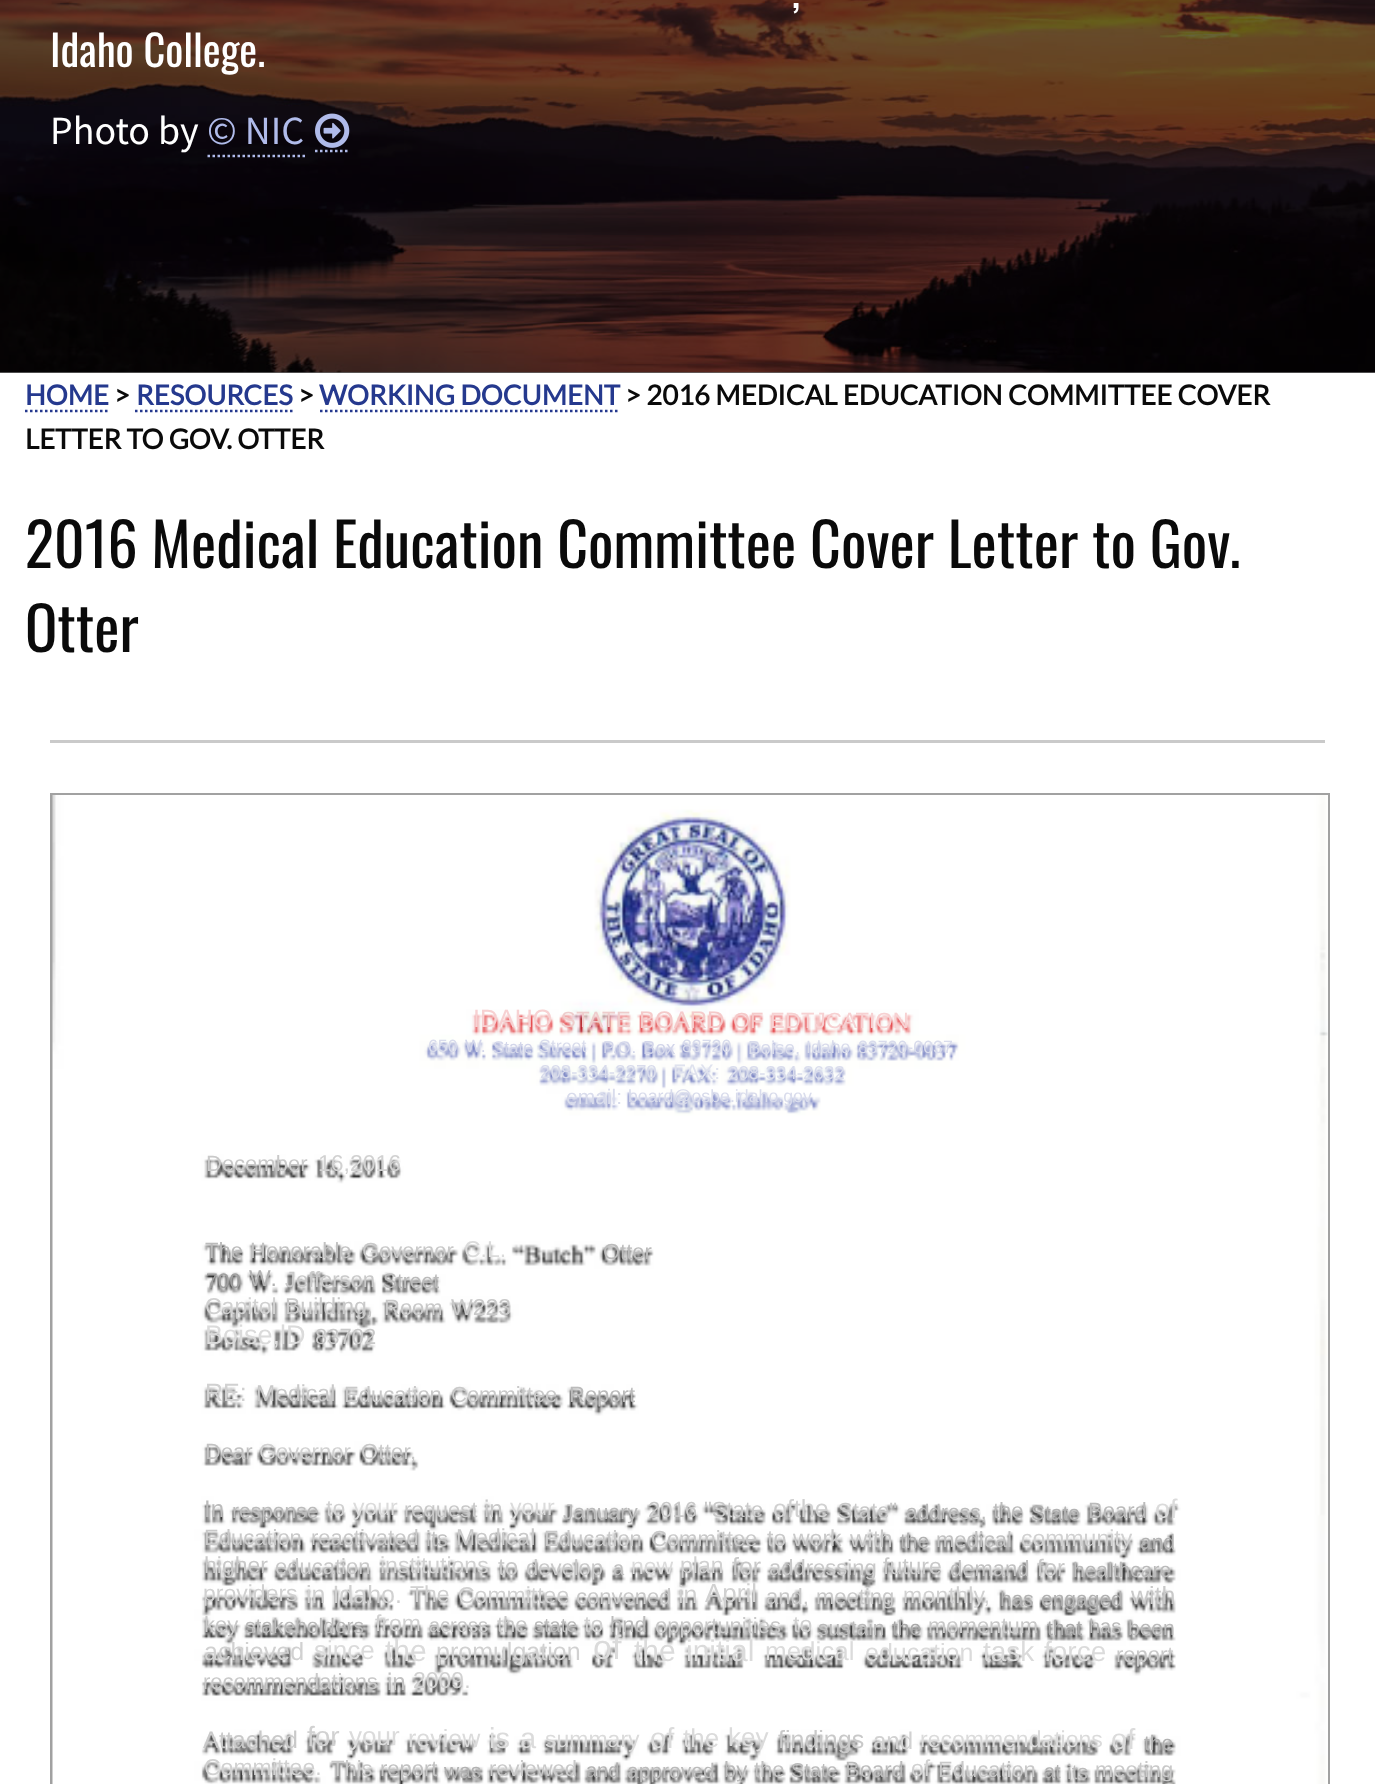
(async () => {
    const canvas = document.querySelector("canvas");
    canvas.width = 1375;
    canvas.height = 1784;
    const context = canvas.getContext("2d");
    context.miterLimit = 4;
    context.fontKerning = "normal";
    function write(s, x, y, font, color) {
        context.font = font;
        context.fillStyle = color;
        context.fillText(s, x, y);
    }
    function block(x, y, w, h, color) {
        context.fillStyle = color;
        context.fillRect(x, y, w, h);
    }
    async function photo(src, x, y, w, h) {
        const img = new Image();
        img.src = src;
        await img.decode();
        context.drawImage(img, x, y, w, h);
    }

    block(0, 0, 1375, 1784, "rgb(255, 255, 255)");
    block(0, 372, 1375, 1, "rgb(102, 102, 102)");
    await photo("media/1.png", 0, 0, 1375, 373);
    write(",", 792, 8, "42.5px Oswald", "rgb(255, 255, 255)");
    write("Idaho College.", 50, 67, "42.5px Oswald", "rgb(255, 255, 255)");
    write("Photo by", 50, 144, "40px Source Sans Pro", "rgb(255, 255, 255)");
    context.beginPath();
    context.moveTo(207.5, 156);
    context.lineTo(305, 156);
    context.strokeStyle = "rgb(176, 187, 234)";
    context.lineWidth = 2.5;
    context.setLineDash([2.5, 2.5]);
    context.stroke();
    context.beginPath();
    context.moveTo(315, 151);
    context.lineTo(350, 151);
    context.stroke();
    write("© NIC", 207, 144, "40px Source Sans Pro", "rgb(176, 187, 234)");
    await photo("media/2.png", 315, 113, 35, 35);
    write("HOME", 25, 405, "bold 27.5px Lato", "rgb(37, 57, 142)");
    context.beginPath();
    context.moveTo(25, 411);
    context.lineTo(110, 411);
    context.strokeStyle = "rgb(37, 57, 142)";
    context.stroke();
    write(">", 114, 405, "bold 27.5px Lato", "rgb(10, 10, 10)");
    write("RESOURCES", 136, 405, "bold 27.5px Lato", "rgb(37, 57, 142)");
    context.beginPath();
    context.moveTo(135, 411);
    context.lineTo(292.5, 411);
    context.stroke();
    write(">", 298, 405, "bold 27.5px Lato", "rgb(10, 10, 10)");
    write("WORKING DOCUMENT", 319, 405, "bold 27.5px Lato", "rgb(37, 57, 142)");
    context.beginPath();
    context.moveTo(320, 411);
    context.lineTo(620, 411);
    context.stroke();
    write("> 2016 MEDICAL EDUCATION COMMITTEE COVER", 625, 405, "bold 27.5px Lato", "rgb(10, 10, 10)");
    write("LETTER TO GOV. OTTER", 25, 449, "bold 27.5px Lato", "rgb(10, 10, 10)");
    write("2016 Medical Education Committee Cover Letter to Gov.", 25, 568, "60px Oswald", "rgb(10, 10, 10)");
    write("Otter", 25, 652, "60px Oswald", "rgb(10, 10, 10)");
    block(50, 740, 1275, 3, "rgb(202, 202, 202)");
    context.strokeStyle = "rgb(161, 161, 161)";
    context.lineWidth = 3;
    context.setLineDash([]);
    context.strokeRect(51.5, 794.5, 1277, 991);
    block(1327, 795, 1, 989, "rgb(255, 255, 255)");
    await photo("media/3.png", 52, 795, 1276, 989);
    write("IDAHO", 473, 1027, "25px Liberation Sans", "rgb(247, 209, 210)");
    context.letterSpacing = "0.5px";
    write("STATE", 561, 1027, "22px Liberation Sans", "rgb(238, 205, 204)");
    context.letterSpacing = "0px";
    write("BOARD", 639, 1028, "24px Liberation Sans", "rgb(245, 202, 202)");
    write("OF", 733, 1028, "22px Liberation Sans", "rgb(245, 202, 202)");
    context.letterSpacing = "0.25px";
    write("EDTJCATION", 770, 1028, "22px Liberation Sans", "rgb(247, 209, 210)");
    context.letterSpacing = "0px";
    write("650", 428, 1052, "17.75px Liberation Sans", "rgb(217, 220, 236)");
    write("W.", 465, 1052, "17.75px Liberation Sans", "rgb(211, 214, 234)");
    write("State", 493, 1053, "17px Liberation Sans", "rgb(211, 214, 234)");
    write("Street", 539, 1052, "17.75px Liberation Sans", "rgb(217, 220, 236)");
    context.letterSpacing = "0.5px";
    write("P.O.", 603, 1053, "17px Liberation Sans", "rgb(211, 214, 234)");
    context.letterSpacing = "0px";
    write("Box", 643, 1054, "18.75px Liberation Sans", "rgb(211, 214, 234)");
    write("83720", 682, 1052, "17.75px Liberation Sans", "rgb(217, 220, 236)");
    write("Boise,", 748, 1054, "18.75px Liberation Sans", "rgb(217, 220, 236)");
    write("Idaho", 806, 1053, "17.75px Liberation Sans", "rgb(217, 220, 236)");
    write("83720-0037", 858, 1053, "17.75px Liberation Sans", "rgb(217, 220, 236)");
    write("208-334-2270", 540, 1078, "18.75px Liberation Sans", "rgb(217, 220, 236)");
    context.letterSpacing = "0.5px";
    write("FAX:", 673, 1079, "21px Liberation Sans", "rgb(223, 226, 238)");
    context.letterSpacing = "0px";
    write("208-334-2632", 728, 1079, "18.75px Liberation Sans", "rgb(217, 220, 236)");
    write("email:", 566, 1104, "21px Liberation Sans", "rgb(217, 220, 236)");
    write("board@osbe.idaho.gov", 628, 1102, "17.75px Liberation Sans", "rgb(217, 220, 236)");
    write("December", 206, 1171, "22px Liberation Sans", "rgb(201, 201, 201)");
    write("16,2016", 318, 1171, "23px Liberation Sans", "rgb(209, 209, 209)");
    write("The", 205, 1258, "22px Liberation Sans", "rgb(187, 187, 187)");
    write("Honorable", 250, 1258, "22px Liberation Sans", "rgb(194, 194, 194)");
    write("Governor", 362, 1258, "22px Liberation Sans", "rgb(201, 201, 201)");
    write("C.L.", 464, 1257, "23px Liberation Sans", "rgb(219, 219, 219)");
    write("Otter", 603, 1259, "22px Liberation Sans", "rgb(187, 187, 187)");
    write("700", 206, 1288, "21px Liberation Sans", "rgb(159, 159, 159)");
    context.letterSpacing = "1px";
    write("W.", 249, 1286, "23px Liberation Sans", "rgb(178, 178, 178)");
    context.letterSpacing = "0px";
    write("Jefferson", 285, 1287, "22px Liberation Sans", "rgb(201, 201, 201)");
    write("Street", 383, 1288, "21px Liberation Sans", "rgb(187, 187, 187)");
    write("Capitol", 205, 1314, "23px Liberation Sans", "rgb(209, 209, 209)");
    write("Building,", 285, 1314, "23px Liberation Sans", "rgb(201, 201, 201)");
    write("Room", 384, 1315, "22px Liberation Sans", "rgb(201, 201, 201)");
    write("W223", 451, 1315, "23px Liberation Sans", "rgb(201, 201, 201)");
    write("Boise,lD", 205, 1344, "27px Liberation Sans", "rgb(219, 219, 219)");
    write("83702", 315, 1344, "22px Liberation Sans", "rgb(201, 201, 201)");
    write("RE:", 205, 1401, "25px Liberation Sans", "rgb(209, 209, 209)");
    write("Medical", 256, 1401, "23px Liberation Sans", "rgb(201, 201, 201)");
    write("Education", 344, 1402, "22px Liberation Sans", "rgb(201, 201, 201)");
    write("Committee", 451, 1402, "22px Liberation Sans", "rgb(201, 201, 201)");
    write("Report", 569, 1402, "22px Liberation Sans", "rgb(187, 187, 187)");
    write("Dear", 205, 1459, "22px Liberation Sans", "rgb(194, 194, 194)");
    write("Governor", 259, 1459, "22px Liberation Sans", "rgb(209, 209, 209)");
    context.letterSpacing = "0.25px";
    write("Otter,", 361, 1459, "22px Liberation Sans", "rgb(201, 201, 201)");
    context.letterSpacing = "0px";
    write("In", 204, 1517, "24px Liberation Sans", "rgb(187, 187, 187)");
    write("response", 232, 1518, "21px Liberation Sans", "rgb(187, 187, 187)");
    write("to", 326, 1516, "23px Liberation Sans", "rgb(209, 209, 209)");
    write("your", 353, 1515, "23px Liberation Sans", "rgb(219, 219, 219)");
    write("request", 404, 1517, "22px Liberation Sans", "rgb(201, 201, 201)");
    write("in", 484, 1517, "24px Liberation Sans", "rgb(201, 201, 201)");
    write("your", 510, 1515, "23px Liberation Sans", "rgb(219, 219, 219)");
    write("January", 563, 1519, "21px Liberation Sans", "rgb(187, 187, 187)");
    write("2016", 648, 1517, "22px Liberation Sans", "rgb(201, 201, 201)");
    write("\"State", 704, 1517, "22px Liberation Sans", "rgb(201, 201, 201)");
    write("ofthe", 773, 1517, "25px Liberation Sans", "rgb(209, 209, 209)");
    write("State\"", 838, 1518, "22px Liberation Sans", "rgb(201, 201, 201)");
    write("address,", 906, 1519, "21px Liberation Sans", "rgb(187, 187, 187)");
    write("the", 993, 1518, "22px Liberation Sans", "rgb(187, 187, 187)");
    write("State", 1031, 1520, "21px Liberation Sans", "rgb(178, 178, 178)");
    write("Board", 1088, 1518, "22px Liberation Sans", "rgb(187, 187, 187)");
    write("of", 1155, 1518, "27px Liberation Sans", "rgb(219, 219, 219)");
    write("Education", 204, 1545, "22px Liberation Sans", "rgb(201, 201, 201)");
    write("reactivated", 311, 1545, "22px Liberation Sans", "rgb(201, 201, 201)");
    write("its", 426, 1546, "22px Liberation Sans", "rgb(194, 194, 194)");
    write("Medical", 456, 1545, "23px Liberation Sans", "rgb(201, 201, 201)");
    write("Education", 544, 1546, "22px Liberation Sans", "rgb(201, 201, 201)");
    write("Committee", 651, 1546, "22px Liberation Sans", "rgb(201, 201, 201)");
    write("to", 767, 1546, "23px Liberation Sans", "rgb(201, 201, 201)");
    write("work", 793, 1546, "23px Liberation Sans", "rgb(201, 201, 201)");
    write("with", 850, 1547, "24px Liberation Sans", "rgb(201, 201, 201)");
    write("the", 900, 1548, "21px Liberation Sans", "rgb(178, 178, 178)");
    write("medical", 936, 1547, "22px Liberation Sans", "rgb(194, 194, 194)");
    write("community", 1021, 1546, "23px Liberation Sans", "rgb(209, 209, 209)");
    write("and", 1140, 1549, "21px Liberation Sans", "rgb(178, 178, 178)");
    write("higher", 204, 1573, "23px Liberation Sans", "rgb(201, 201, 201)");
    write("education", 275, 1574, "22px Liberation Sans", "rgb(201, 201, 201)");
    write("institutions", 380, 1573, "23px Liberation Sans", "rgb(209, 209, 209)");
    write("to", 498, 1575, "24px Liberation Sans", "rgb(201, 201, 201)");
    write("develop", 526, 1575, "22px Liberation Sans", "rgb(201, 201, 201)");
    write("a", 613, 1575, "20px Liberation Sans", "rgb(194, 194, 194)");
    write("new", 631, 1574, "23px Liberation Sans", "rgb(219, 219, 219)");
    write("plan", 680, 1573, "23px Liberation Sans", "rgb(209, 209, 209)");
    write("for", 732, 1575, "25px Liberation Sans", "rgb(201, 201, 201)");
    write("addressing", 769, 1575, "22px Liberation Sans", "rgb(201, 201, 201)");
    write("future", 883, 1574, "23px Liberation Sans", "rgb(201, 201, 201)");
    write("demand", 950, 1576, "22px Liberation Sans", "rgb(194, 194, 194)");
    write("for", 1037, 1576, "24px Liberation Sans", "rgb(201, 201, 201)");
    write("healthcare", 1073, 1577, "21px Liberation Sans", "rgb(187, 187, 187)");
    write("providers", 203, 1601, "23px Liberation Sans", "rgb(209, 209, 209)");
    write("in Idaho.", 306, 1603, "25px Liberation Sans", "rgb(209, 209, 209)");
    write("The", 410, 1602, "23px Liberation Sans", "rgb(209, 209, 209)");
    write("Committee", 458, 1603, "23px Liberation Sans", "rgb(209, 209, 209)");
    write("convened", 576, 1604, "22px Liberation Sans", "rgb(201, 201, 201)");
    write("in", 678, 1603, "25px Liberation Sans", "rgb(209, 209, 209)");
    write("April", 705, 1602, "26px Liberation Sans", "rgb(209, 209, 209)");
    write("and,", 766, 1604, "22px Liberation Sans", "rgb(201, 201, 201)");
    write("meeting", 816, 1604, "22px Liberation Sans", "rgb(201, 201, 201)");
    context.letterSpacing = "0.25px";
    write("monthly,", 903, 1603, "23px Liberation Sans", "rgb(209, 209, 209)");
    context.letterSpacing = "0px";
    write("has", 1000, 1606, "21px Liberation Sans", "rgb(178, 178, 178)");
    write("engaged", 1041, 1606, "21px Liberation Sans", "rgb(178, 178, 178)");
    write("with", 1131, 1604, "25px Liberation Sans", "rgb(201, 201, 201)");
    write("key", 204, 1632, "22px Liberation Sans", "rgb(201, 201, 201)");
    write("stakeholders", 245, 1633, "21px Liberation Sans", "rgb(187, 187, 187)");
    write("from", 375, 1631, "23px Liberation Sans", "rgb(209, 209, 209)");
    write("across", 429, 1632, "20px Liberation Sans", "rgb(201, 201, 201)");
    write("the", 497, 1632, "22px Liberation Sans", "rgb(201, 201, 201)");
    write("state", 534, 1632, "20px Liberation Sans", "rgb(187, 187, 187)");
    write("to", 584, 1632, "23px Liberation Sans", "rgb(209, 209, 209)");
    write("hnd", 610, 1632, "22px Liberation Sans", "rgb(187, 187, 187)");
    write("opportunities", 655, 1633, "22px Liberation Sans", "rgb(201, 201, 201)");
    write("to", 793, 1632, "23px Liberation Sans", "rgb(209, 209, 209)");
    write("sustain", 818, 1635, "21px Liberation Sans", "rgb(187, 187, 187)");
    write("the", 892, 1635, "21px Liberation Sans", "rgb(170, 170, 170)");
    write("momentum", 928, 1633, "22px Liberation Sans", "rgb(201, 201, 201)");
    write("that", 1047, 1635, "21px Liberation Sans", "rgb(170, 170, 170)");
    write("has", 1089, 1633, "20px Liberation Sans", "rgb(187, 187, 187)");
    write("been", 1128, 1635, "21px Liberation Sans", "rgb(187, 187, 187)");
    write("achieved", 204, 1660, "25px Liberation Sans", "rgb(209, 209, 209)");
    write("since", 314, 1659, "26px Liberation Sans", "rgb(219, 219, 219)");
    write("the", 385, 1661, "30px Liberation Sans", "rgb(219, 219, 219)");
    write("promulgation", 436, 1660, "25px Liberation Sans", "rgb(209, 209, 209)");
    write("of", 593, 1659, "34px Liberation Sans", "rgb(219, 219, 219)");
    write("the", 634, 1661, "30px Liberation Sans", "rgb(219, 219, 219)");
    write("initial", 686, 1661, "30px Liberation Sans", "rgb(219, 219, 219)");
    write("medical", 765, 1660, "26px Liberation Sans", "rgb(219, 219, 219)");
    write("education", 865, 1661, "25px Liberation Sans", "rgb(219, 219, 219)");
    write("task", 983, 1661, "28px Liberation Sans", "rgb(219, 219, 219)");
    write("force", 1044, 1661, "28px Liberation Sans", "rgb(219, 219, 219)");
    write("report", 1116, 1662, "22px Liberation Sans", "rgb(201, 201, 201)");
    write("recommendations", 203, 1689, "22px Liberation Sans", "rgb(201, 201, 201)");
    write("in", 387, 1690, "24px Liberation Sans", "rgb(194, 194, 194)");
    write("2009.", 413, 1688, "23px Liberation Sans", "rgb(209, 209, 209)");
    write("Attached", 203, 1748, "24px Liberation Sans", "rgb(201, 201, 201)");
    write("for", 307, 1746, "28px Liberation Sans", "rgb(209, 209, 209)");
    write("your", 349, 1745, "26px Liberation Sans", "rgb(219, 219, 219)");
    write("review", 408, 1747, "25px Liberation Sans", "rgb(219, 219, 219)");
    write("is", 489, 1748, "29px Liberation Sans", "rgb(219, 219, 219)");
    write("a", 520, 1748, "29px Liberation Sans", "rgb(219, 219, 219)");
    write("summary", 545, 1747, "23px Liberation Sans", "rgb(219, 219, 219)");
    write("of", 650, 1748, "29px Liberation Sans", "rgb(219, 219, 219)");
    write("the", 683, 1747, "26px Liberation Sans", "rgb(219, 219, 219)");
    write("key", 728, 1746, "26px Liberation Sans", "rgb(219, 219, 219)");
    write("findings", 778, 1748, "25px Liberation Sans", "rgb(201, 201, 201)");
    write("and", 873, 1749, "24px Liberation Sans", "rgb(209, 209, 209)");
    write("recommendations", 920, 1747, "23px Liberation Sans", "rgb(219, 219, 219)");
    write("of", 1111, 1749, "29px Liberation Sans", "rgb(219, 219, 219)");
    write("the", 1144, 1750, "21px Liberation Sans", "rgb(178, 178, 178)");
    write("Committee.", 204, 1775, "23px Liberation Sans", "rgb(209, 209, 209)");
    write("This", 331, 1776, "22px Liberation Sans", "rgb(201, 201, 201)");
    write("report", 380, 1776, "22px Liberation Sans", "rgb(194, 194, 194)");
    write("was", 444, 1778, "21px Liberation Sans", "rgb(178, 178, 178)");
    write("reviewed", 489, 1776, "22px Liberation Sans", "rgb(201, 201, 201)");
    write("and", 586, 1777, "20px Liberation Sans", "rgb(178, 178, 178)");
    write("approved", 627, 1778, "21px Liberation Sans", "rgb(187, 187, 187)");
    write("by", 724, 1777, "22px Liberation Sans", "rgb(187, 187, 187)");
    write("the", 754, 1777, "22px Liberation Sans", "rgb(194, 194, 194)");
    write("State", 791, 1777, "20px Liberation Sans", "rgb(187, 187, 187)");
    write("Board", 845, 1777, "22px Liberation Sans", "rgb(187, 187, 187)");
    write("of", 911, 1776, "23px Liberation Sans", "rgb(209, 209, 209)");
    write("Education", 938, 1777, "22px Liberation Sans", "rgb(201, 201, 201)");
    write("at", 1044, 1778, "20px Liberation Sans", "rgb(178, 178, 178)");
    write("its", 1067, 1779, "21px Liberation Sans", "rgb(187, 187, 187)");
    write("meeting", 1095, 1777, "22px Liberation Sans", "rgb(201, 201, 201)");
})();
